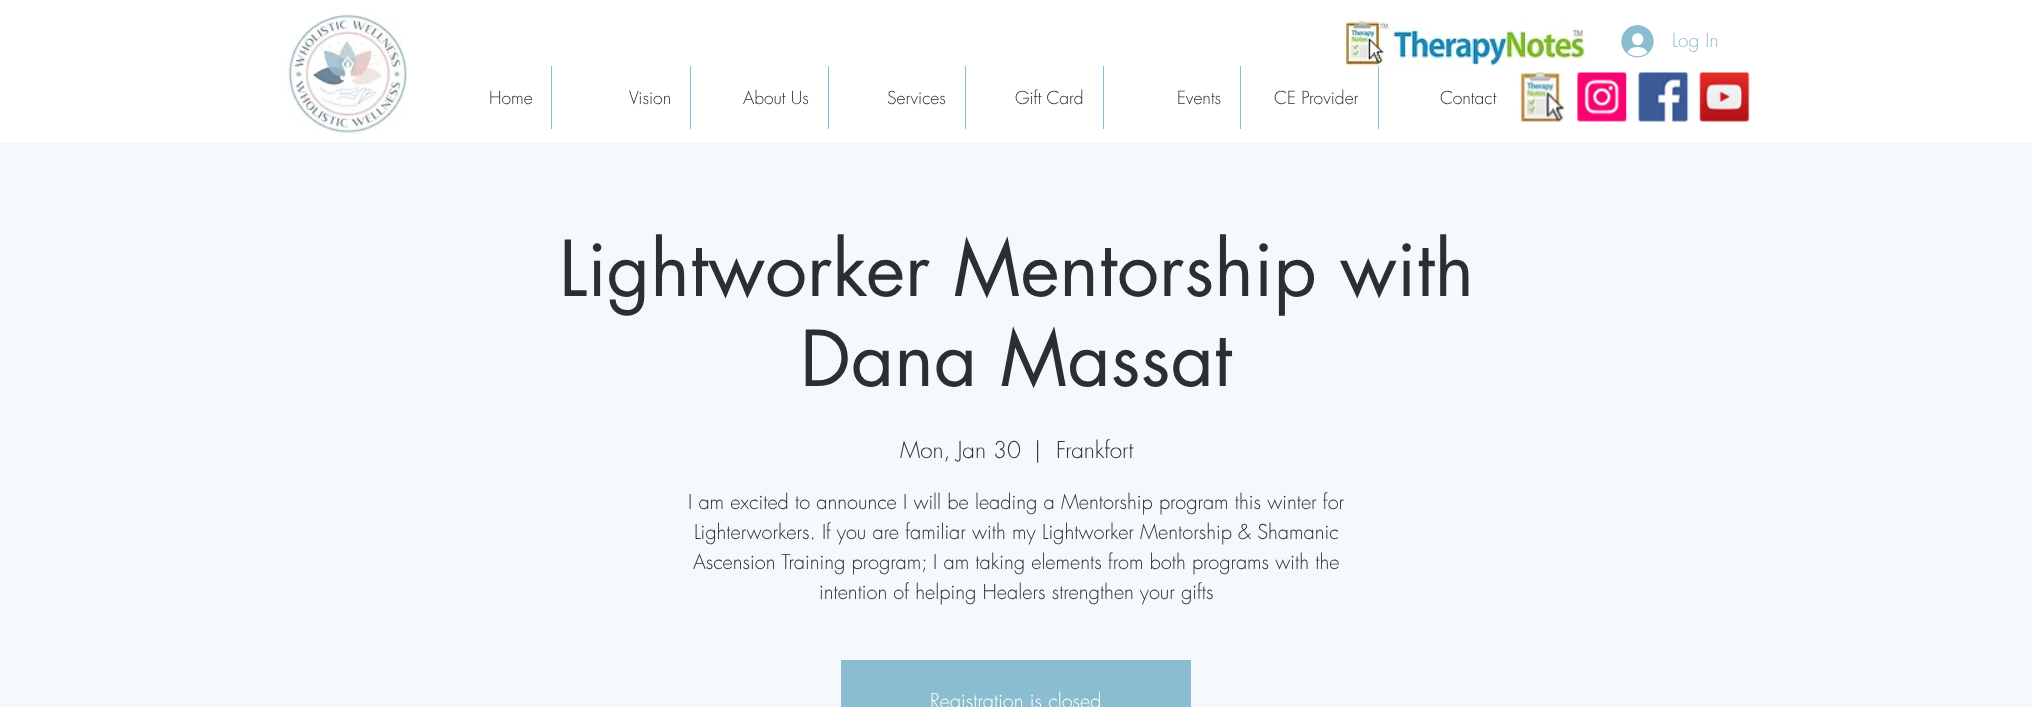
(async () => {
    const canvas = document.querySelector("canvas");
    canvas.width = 2032;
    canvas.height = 707;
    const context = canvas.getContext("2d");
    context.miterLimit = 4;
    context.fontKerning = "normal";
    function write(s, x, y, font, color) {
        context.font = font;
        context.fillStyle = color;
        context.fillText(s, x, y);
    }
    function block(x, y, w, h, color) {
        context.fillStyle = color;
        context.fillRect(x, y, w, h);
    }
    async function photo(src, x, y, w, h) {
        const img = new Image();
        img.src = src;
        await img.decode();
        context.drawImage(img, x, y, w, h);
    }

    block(0, 0, 2032, 707, "rgb(255, 255, 255)");
    await photo("media/1.png", 286, 14, 121, 121);
    block(1378, 66, 1, 63, "rgb(138, 189, 207)");
    await photo("media/2.png", 1345, 17, 240, 50);
    await photo("media/3.png", 1621, 25, 33, 33);
    write("Log In", 1672, 47, "300 19px futura", "rgb(138, 189, 207)");
    write("Home", 489, 104, "300 17.5px futura", "rgb(42, 47, 54)");
    block(551, 66, 1, 63, "rgb(138, 189, 207)");
    write("Vision", 629, 104, "300 17.5px futura", "rgb(42, 47, 54)");
    block(690, 66, 1, 63, "rgb(138, 189, 207)");
    write("About Us", 743, 104, "300 17.5px futura", "rgb(42, 47, 54)");
    block(828, 66, 1, 63, "rgb(138, 189, 207)");
    write("Services", 887, 104, "300 17.5px futura", "rgb(42, 47, 54)");
    block(965, 66, 1, 63, "rgb(138, 189, 207)");
    write("Gift Card", 1015, 104, "300 17.5px futura", "rgb(42, 47, 54)");
    block(1103, 66, 1, 63, "rgb(138, 189, 207)");
    write("Events", 1177, 104, "300 17.5px futura", "rgb(42, 47, 54)");
    block(1240, 66, 1, 63, "rgb(138, 189, 207)");
    write("CE Provider", 1274, 104, "300 17.5px futura", "rgb(42, 47, 54)");
    write("Contact", 1440, 104, "300 17.5px futura", "rgb(42, 47, 54)");
    await photo("media/4.png", 1516, 72, 49, 50);
    await photo("media/5.png", 1577, 72, 50, 50);
    await photo("media/6.png", 1638, 72, 51, 50);
    await photo("media/7.png", 1699, 72, 51, 50);
    block(0, 143, 2032, 564, "rgb(244, 249, 251)");
    write("Lightworker Mentorship with", 559, 296, "75px futura", "rgb(42, 47, 54)");
    write("Dana Massat", 800, 386, "75px futura", "rgb(42, 47, 54)");
    write("Mon, Jan 30", 900, 458, "300 22.5px futura", "rgb(42, 47, 54)");
    write("|", 1034, 458, "300 22.5px futura", "rgb(42, 47, 54)");
    write("Frankfort", 1056, 458, "300 22.5px futura", "rgb(42, 47, 54)");
    write("I am excited to announce I will be leading a Mentorship program this winter for", 688, 509, "300 20px futura", "rgb(42, 47, 54)");
    write("Lighterworkers. If you are familiar with my Lightworker Mentorship & Shamanic", 694, 539, "300 20px futura", "rgb(42, 47, 54)");
    write("Ascension Training program; I am taking elements from both programs with the", 693, 569, "300 20px futura", "rgb(42, 47, 54)");
    write("intention of helping Healers strengthen your gifts", 819, 599, "300 20px futura", "rgb(42, 47, 54)");
    block(841, 660, 350, 47, "rgb(138, 189, 207)");
    write("Registration is closed", 930, 708, "300 20px futura", "rgb(255, 255, 255)");
})();
